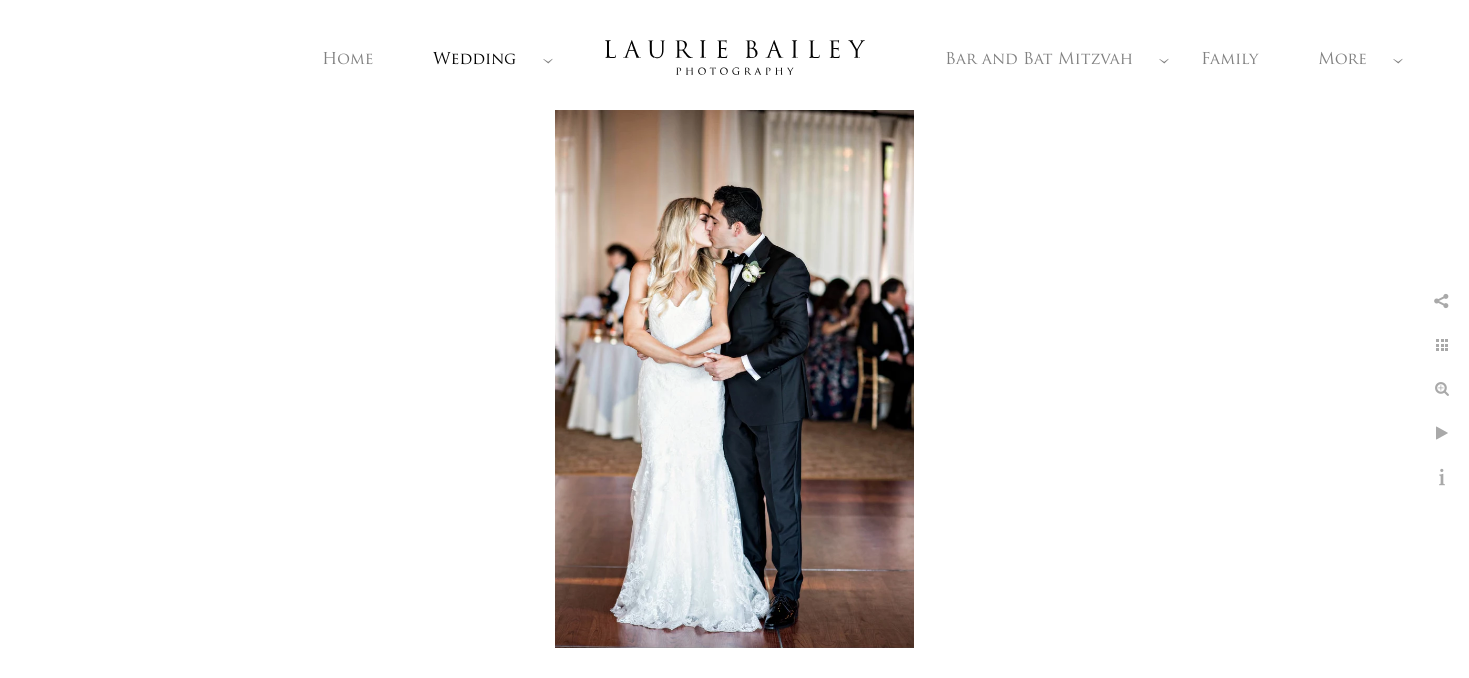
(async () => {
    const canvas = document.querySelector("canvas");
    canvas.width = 1469;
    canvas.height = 678;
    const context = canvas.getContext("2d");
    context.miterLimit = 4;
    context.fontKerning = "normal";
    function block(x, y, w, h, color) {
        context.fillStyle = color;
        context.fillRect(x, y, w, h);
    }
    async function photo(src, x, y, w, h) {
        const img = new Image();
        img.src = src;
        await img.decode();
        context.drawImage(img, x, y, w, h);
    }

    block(0, 0, 1469, 678, "rgb(255, 255, 255)");
    await photo("media/1.png", 323, 51, 50, 14);
    await photo("media/2.png", 433, 51, 83, 14);
    await photo("media/3.png", 543, 58, 10, 6);
    await photo("media/4.png", 605, 40, 260, 35);
    await photo("media/5.png", 946, 51, 186, 14);
    await photo("media/3.png", 1159, 58, 10, 6);
    await photo("media/6.png", 1202, 51, 57, 14);
    await photo("media/7.png", 1319, 51, 47, 14);
    await photo("media/3.png", 1393, 58, 10, 6);
    await photo("media/8.png", 555, 110, 359, 538);
    await photo("media/9.png", 1434, 293, 15, 16);
    await photo("media/10.png", 1436, 339, 12, 12);
    await photo("media/11.png", 1435, 382, 14, 14);
    await photo("media/12.png", 1436, 426, 12, 14);
    await photo("media/13.png", 1439, 468, 6, 18);
})();
